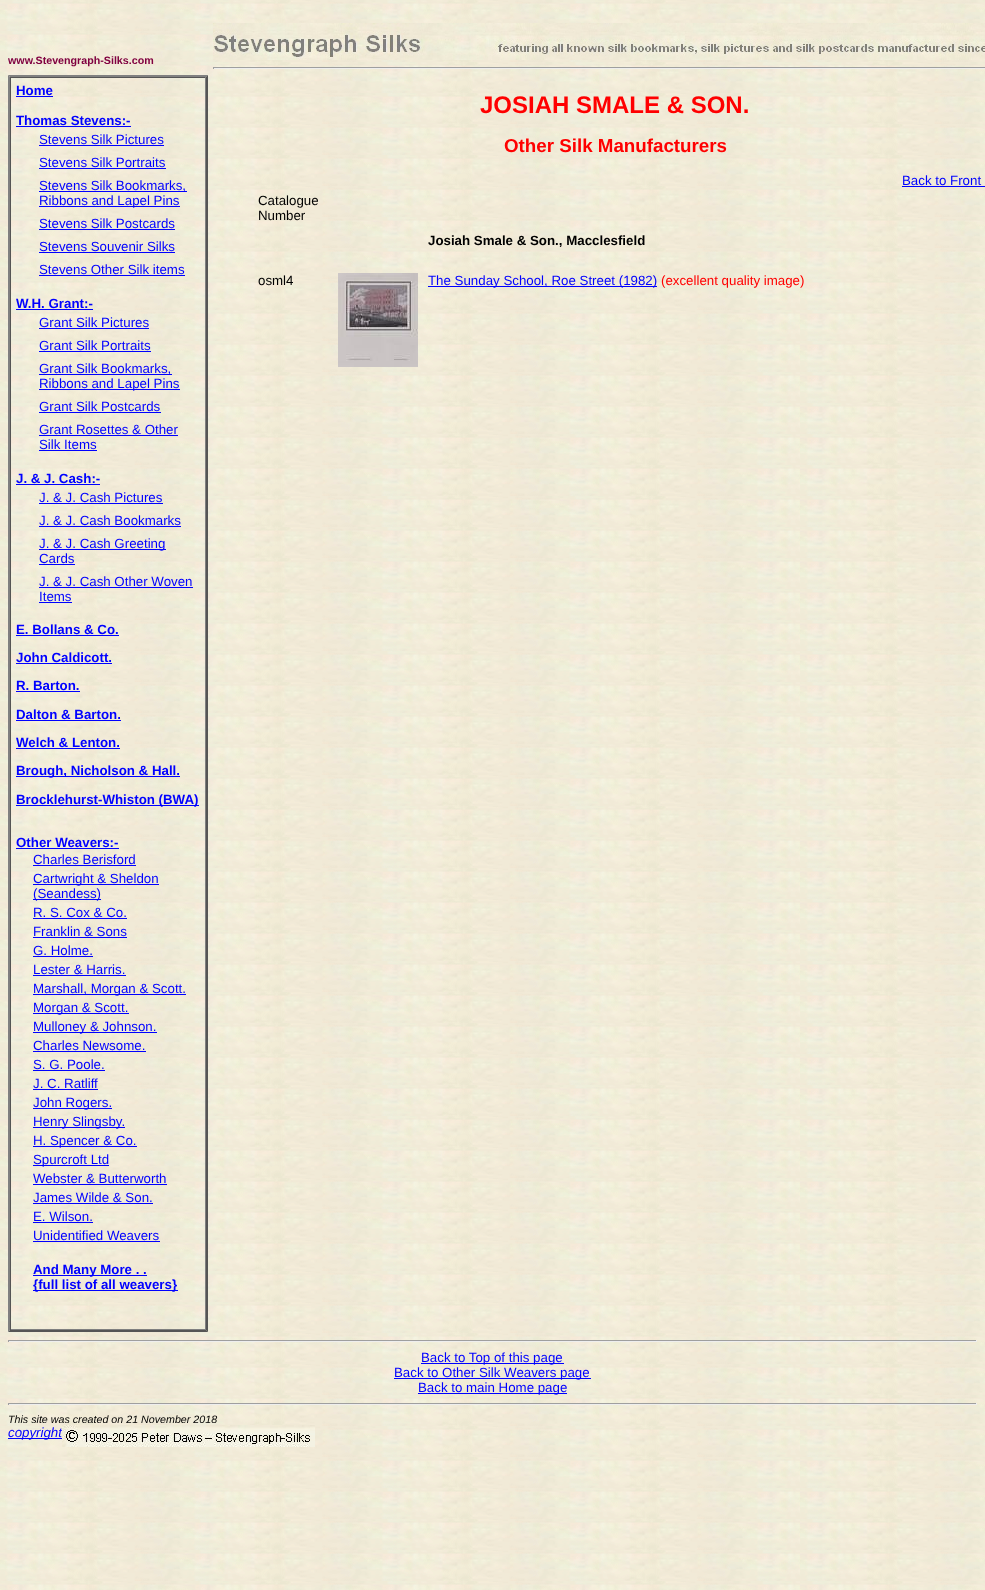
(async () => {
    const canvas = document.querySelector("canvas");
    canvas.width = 985;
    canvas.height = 1590;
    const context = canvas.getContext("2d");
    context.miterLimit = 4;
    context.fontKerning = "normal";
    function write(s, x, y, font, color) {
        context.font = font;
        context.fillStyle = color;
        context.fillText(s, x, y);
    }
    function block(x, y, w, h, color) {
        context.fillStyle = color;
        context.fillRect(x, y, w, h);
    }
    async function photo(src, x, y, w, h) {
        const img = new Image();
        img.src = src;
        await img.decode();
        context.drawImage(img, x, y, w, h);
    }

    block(0, 0, 985, 1590, "rgb(255, 255, 255)");
    await photo("media/1.png", 0, 0, 985, 1590);
    write("www.Stevengraph-Silks.com", 8, 64, "bold 10.7px Liberation Sans", "rgb(128, 0, 64)");
    await photo("media/2.png", 213, 23, 772, 37);
    block(213, 67, 772, 1, "rgb(159, 159, 159)");
    block(213, 68, 772, 1, "rgb(238, 238, 238)");
    block(213, 67, 1, 2, "rgb(159, 159, 159)");
    context.fillStyle = "rgb(128, 128, 128)";
    context.beginPath();
    context.moveTo(8, 75);
    context.lineTo(208, 75);
    context.lineTo(206, 77);
    context.lineTo(10, 77);
    context.closePath();
    context.fill();
    context.fillStyle = "rgb(85, 85, 85)";
    context.beginPath();
    context.moveTo(208, 75);
    context.lineTo(208, 1332);
    context.lineTo(206, 1330);
    context.lineTo(206, 77);
    context.closePath();
    context.fill();
    context.beginPath();
    context.moveTo(208, 1332);
    context.lineTo(8, 1332);
    context.lineTo(10, 1330);
    context.lineTo(206, 1330);
    context.closePath();
    context.fill();
    context.fillStyle = "rgb(128, 128, 128)";
    context.beginPath();
    context.moveTo(8, 1332);
    context.lineTo(8, 75);
    context.lineTo(10, 77);
    context.lineTo(10, 1330);
    context.closePath();
    context.fill();
    block(10, 77, 196, 1, "rgb(85, 85, 85)");
    block(205, 77, 1, 1253, "rgb(128, 128, 128)");
    block(10, 1329, 196, 1, "rgb(128, 128, 128)");
    block(10, 77, 1, 1253, "rgb(85, 85, 85)");
    write("Home", 16, 95, "bold 13.3px Liberation Sans", "rgb(0, 0, 255)");
    block(16, 96, 37, 1, "rgb(0, 0, 255)");
    write("Thomas Stevens:-", 16, 125, "bold 13.3px Liberation Sans", "rgb(0, 0, 255)");
    block(16, 126, 115, 1, "rgb(0, 0, 255)");
    write("Stevens Silk Pictures", 39, 144, "13.3px Liberation Sans", "rgb(0, 0, 255)");
    block(39, 145, 125, 1, "rgb(0, 0, 255)");
    write("Stevens Silk Portraits", 39, 167, "13.3px Liberation Sans", "rgb(0, 0, 255)");
    block(39, 168, 127, 1, "rgb(0, 0, 255)");
    block(39, 191, 148, 1, "rgb(0, 0, 255)");
    write("Stevens Silk Bookmarks,", 39, 190, "13.3px Liberation Sans", "rgb(0, 0, 255)");
    block(39, 206, 141, 1, "rgb(0, 0, 255)");
    write("Ribbons and Lapel Pins", 39, 205, "13.3px Liberation Sans", "rgb(0, 0, 255)");
    write("Stevens Silk Postcards", 39, 228, "13.3px Liberation Sans", "rgb(0, 0, 255)");
    block(39, 229, 136, 1, "rgb(0, 0, 255)");
    write("Stevens Souvenir Silks", 39, 251, "13.3px Liberation Sans", "rgb(0, 0, 255)");
    block(39, 252, 136, 1, "rgb(0, 0, 255)");
    write("Stevens Other Silk items", 39, 274, "13.3px Liberation Sans", "rgb(0, 0, 255)");
    block(39, 275, 146, 1, "rgb(0, 0, 255)");
    write("W.H. Grant:-", 16, 308, "bold 13.3px Liberation Sans", "rgb(0, 0, 255)");
    block(16, 309, 77, 1, "rgb(0, 0, 255)");
    write("Grant Silk Pictures", 39, 327, "13.3px Liberation Sans", "rgb(0, 0, 255)");
    block(39, 328, 110, 1, "rgb(0, 0, 255)");
    write("Grant Silk Portraits", 39, 350, "13.3px Liberation Sans", "rgb(0, 0, 255)");
    block(39, 351, 112, 1, "rgb(0, 0, 255)");
    block(39, 374, 133, 1, "rgb(0, 0, 255)");
    write("Grant Silk Bookmarks,", 39, 373, "13.3px Liberation Sans", "rgb(0, 0, 255)");
    block(39, 389, 141, 1, "rgb(0, 0, 255)");
    write("Ribbons and Lapel Pins", 39, 388, "13.3px Liberation Sans", "rgb(0, 0, 255)");
    write("Grant Silk Postcards", 39, 411, "13.3px Liberation Sans", "rgb(0, 0, 255)");
    block(39, 412, 122, 1, "rgb(0, 0, 255)");
    write("Grant Rosettes & Other", 39, 434, "13.3px Liberation Sans", "rgb(0, 0, 255)");
    block(39, 435, 139, 1, "rgb(0, 0, 255)");
    write("Silk Items", 39, 449, "13.3px Liberation Sans", "rgb(0, 0, 255)");
    block(39, 450, 58, 1, "rgb(0, 0, 255)");
    write("J. & J. Cash:-", 16, 483, "bold 13.3px Liberation Sans", "rgb(0, 0, 255)");
    block(16, 484, 84, 1, "rgb(0, 0, 255)");
    write("J. & J. Cash Pictures", 39, 502, "13.3px Liberation Sans", "rgb(0, 0, 255)");
    block(39, 503, 124, 1, "rgb(0, 0, 255)");
    write("J. & J. Cash Bookmarks", 39, 525, "13.3px Liberation Sans", "rgb(0, 0, 255)");
    block(39, 526, 142, 1, "rgb(0, 0, 255)");
    block(39, 549, 127, 1, "rgb(0, 0, 255)");
    write("J. & J. Cash Greeting", 39, 548, "13.3px Liberation Sans", "rgb(0, 0, 255)");
    write("Cards", 39, 563, "13.3px Liberation Sans", "rgb(0, 0, 255)");
    block(39, 564, 36, 1, "rgb(0, 0, 255)");
    write("J. & J. Cash Other Woven", 39, 586, "13.3px Liberation Sans", "rgb(0, 0, 255)");
    block(39, 587, 154, 1, "rgb(0, 0, 255)");
    write("Items", 39, 601, "13.3px Liberation Sans", "rgb(0, 0, 255)");
    block(39, 602, 33, 1, "rgb(0, 0, 255)");
    write("E. Bollans & Co.", 16, 634, "bold 13.3px Liberation Sans", "rgb(0, 0, 255)");
    block(16, 635, 103, 1, "rgb(0, 0, 255)");
    write("John Caldicott.", 16, 662, "bold 13.3px Liberation Sans", "rgb(0, 0, 255)");
    block(16, 663, 96, 1, "rgb(0, 0, 255)");
    write("R. Barton.", 16, 690, "bold 13.3px Liberation Sans", "rgb(0, 0, 255)");
    block(16, 691, 64, 1, "rgb(0, 0, 255)");
    write("Dalton & Barton.", 16, 719, "bold 13.3px Liberation Sans", "rgb(0, 0, 255)");
    block(16, 720, 105, 1, "rgb(0, 0, 255)");
    write("Welch & Lenton.", 16, 747, "bold 13.3px Liberation Sans", "rgb(0, 0, 255)");
    block(16, 748, 104, 1, "rgb(0, 0, 255)");
    block(16, 776, 164, 1, "rgb(0, 0, 255)");
    write("Brough, Nicholson & Hall.", 16, 775, "bold 13.3px Liberation Sans", "rgb(0, 0, 255)");
    block(16, 805, 183, 1, "rgb(0, 0, 255)");
    write("Brocklehurst-Whiston (BWA)", 16, 804, "bold 13.3px Liberation Sans", "rgb(0, 0, 255)");
    write("Other Weavers:-", 16, 847, "bold 13.3px Liberation Sans", "rgb(0, 0, 255)");
    block(16, 848, 103, 1, "rgb(0, 0, 255)");
    write("Charles Berisford", 33, 864, "13.3px Liberation Sans", "rgb(0, 0, 255)");
    block(33, 865, 103, 1, "rgb(0, 0, 255)");
    block(33, 884, 126, 1, "rgb(0, 0, 255)");
    write("Cartwright & Sheldon", 33, 883, "13.3px Liberation Sans", "rgb(0, 0, 255)");
    block(33, 899, 68, 1, "rgb(0, 0, 255)");
    write("(Seandess)", 33, 898, "13.3px Liberation Sans", "rgb(0, 0, 255)");
    write("R. S. Cox & Co.", 33, 917, "13.3px Liberation Sans", "rgb(0, 0, 255)");
    block(33, 918, 94, 1, "rgb(0, 0, 255)");
    write("Franklin & Sons", 33, 936, "13.3px Liberation Sans", "rgb(0, 0, 255)");
    block(33, 937, 94, 1, "rgb(0, 0, 255)");
    write("G. Holme.", 33, 955, "13.3px Liberation Sans", "rgb(0, 0, 255)");
    block(33, 956, 60, 1, "rgb(0, 0, 255)");
    write("Lester & Harris.", 33, 974, "13.3px Liberation Sans", "rgb(0, 0, 255)");
    block(33, 975, 93, 1, "rgb(0, 0, 255)");
    block(33, 994, 153, 1, "rgb(0, 0, 255)");
    write("Marshall, Morgan & Scott.", 33, 993, "13.3px Liberation Sans", "rgb(0, 0, 255)");
    block(33, 1013, 96, 1, "rgb(0, 0, 255)");
    write("Morgan & Scott.", 33, 1012, "13.3px Liberation Sans", "rgb(0, 0, 255)");
    block(33, 1032, 124, 1, "rgb(0, 0, 255)");
    write("Mulloney & Johnson.", 33, 1031, "13.3px Liberation Sans", "rgb(0, 0, 255)");
    write("Charles Newsome.", 33, 1050, "13.3px Liberation Sans", "rgb(0, 0, 255)");
    block(33, 1051, 113, 1, "rgb(0, 0, 255)");
    write("S. G. Poole.", 33, 1069, "13.3px Liberation Sans", "rgb(0, 0, 255)");
    block(33, 1070, 72, 1, "rgb(0, 0, 255)");
    write("J. C. Ratliff", 33, 1088, "13.3px Liberation Sans", "rgb(0, 0, 255)");
    block(33, 1089, 65, 1, "rgb(0, 0, 255)");
    block(33, 1108, 79, 1, "rgb(0, 0, 255)");
    write("John Rogers.", 33, 1107, "13.3px Liberation Sans", "rgb(0, 0, 255)");
    block(33, 1127, 92, 1, "rgb(0, 0, 255)");
    write("Henry Slingsby.", 33, 1126, "13.3px Liberation Sans", "rgb(0, 0, 255)");
    block(33, 1146, 104, 1, "rgb(0, 0, 255)");
    write("H. Spencer & Co.", 33, 1145, "13.3px Liberation Sans", "rgb(0, 0, 255)");
    block(33, 1165, 76, 1, "rgb(0, 0, 255)");
    write("Spurcroft Ltd", 33, 1164, "13.3px Liberation Sans", "rgb(0, 0, 255)");
    write("Webster & Butterworth", 33, 1183, "13.3px Liberation Sans", "rgb(0, 0, 255)");
    block(33, 1184, 134, 1, "rgb(0, 0, 255)");
    write("James Wilde & Son.", 33, 1202, "13.3px Liberation Sans", "rgb(0, 0, 255)");
    block(33, 1203, 120, 1, "rgb(0, 0, 255)");
    write("E. Wilson.", 33, 1221, "13.3px Liberation Sans", "rgb(0, 0, 255)");
    block(33, 1222, 60, 1, "rgb(0, 0, 255)");
    write("Unidentified Weavers", 33, 1240, "13.3px Liberation Sans", "rgb(0, 0, 255)");
    block(33, 1241, 127, 1, "rgb(0, 0, 255)");
    block(33, 1275, 114, 1, "rgb(0, 0, 255)");
    write("And Many More . .", 33, 1274, "bold 13.3px Liberation Sans", "rgb(0, 0, 255)");
    block(33, 1290, 145, 1, "rgb(0, 0, 255)");
    write("{full list of all weavers}", 33, 1289, "bold 13.3px Liberation Sans", "rgb(0, 0, 255)");
    write("JOSIAH SMALE & SON.", 480, 113, "bold 24px Liberation Sans", "rgb(255, 0, 0)");
    write("Other Silk Manufacturers", 504, 152, "bold 18.75px Liberation Sans", "rgb(255, 0, 0)");
    write("Back to Front", 902, 185, "13.3px Liberation Sans", "rgb(0, 0, 255)");
    block(902, 186, 83, 1, "rgb(0, 0, 255)");
    write("Catalogue", 258, 205, "13.3px Liberation Sans", "rgb(0, 0, 0)");
    write("Number", 258, 220, "13.3px Liberation Sans", "rgb(0, 0, 0)");
    write("Josiah Smale & Son., Macclesfield", 428, 245, "bold 13.3px Liberation Sans", "rgb(0, 0, 0)");
    write("osml4", 258, 285, "13.3px Liberation Sans", "rgb(0, 0, 0)");
    await photo("media/3.png", 338, 273, 80, 94);
    block(428, 286, 229, 1, "rgb(0, 0, 255)");
    write("The Sunday School, Roe Street (1982)", 428, 285, "13.3px Liberation Sans", "rgb(0, 0, 255)");
    write("(excellent quality image)", 661, 285, "13.3px Liberation Sans", "rgb(255, 0, 0)");
    block(8, 1340, 969, 1, "rgb(159, 159, 159)");
    block(976, 1340, 1, 2, "rgb(238, 238, 238)");
    block(8, 1341, 969, 1, "rgb(238, 238, 238)");
    block(8, 1340, 1, 2, "rgb(159, 159, 159)");
    block(421, 1363, 143, 1, "rgb(0, 0, 255)");
    write("Back to Top of this page", 421, 1362, "13.3px Liberation Sans", "rgb(0, 0, 255)");
    block(394, 1378, 197, 1, "rgb(0, 0, 255)");
    write("Back to Other Silk Weavers page", 394, 1377, "13.3px Liberation Sans", "rgb(0, 0, 255)");
    block(418, 1393, 149, 1, "rgb(0, 0, 255)");
    write("Back to main Home page", 418, 1392, "13.3px Liberation Sans", "rgb(0, 0, 255)");
    block(8, 1403, 969, 1, "rgb(159, 159, 159)");
    block(976, 1403, 1, 2, "rgb(238, 238, 238)");
    block(8, 1404, 969, 1, "rgb(238, 238, 238)");
    block(8, 1403, 1, 2, "rgb(159, 159, 159)");
    write("This site was created on 21 November 2018", 8, 1423, "italic 10.7px Liberation Sans", "rgb(0, 0, 0)");
    block(8, 1438, 54, 1, "rgb(0, 0, 255)");
    write("copyright", 8, 1437, "italic 13.3px Liberation Sans", "rgb(0, 0, 255)");
    await photo("media/4.png", 62, 1425, 253, 22);
})();
